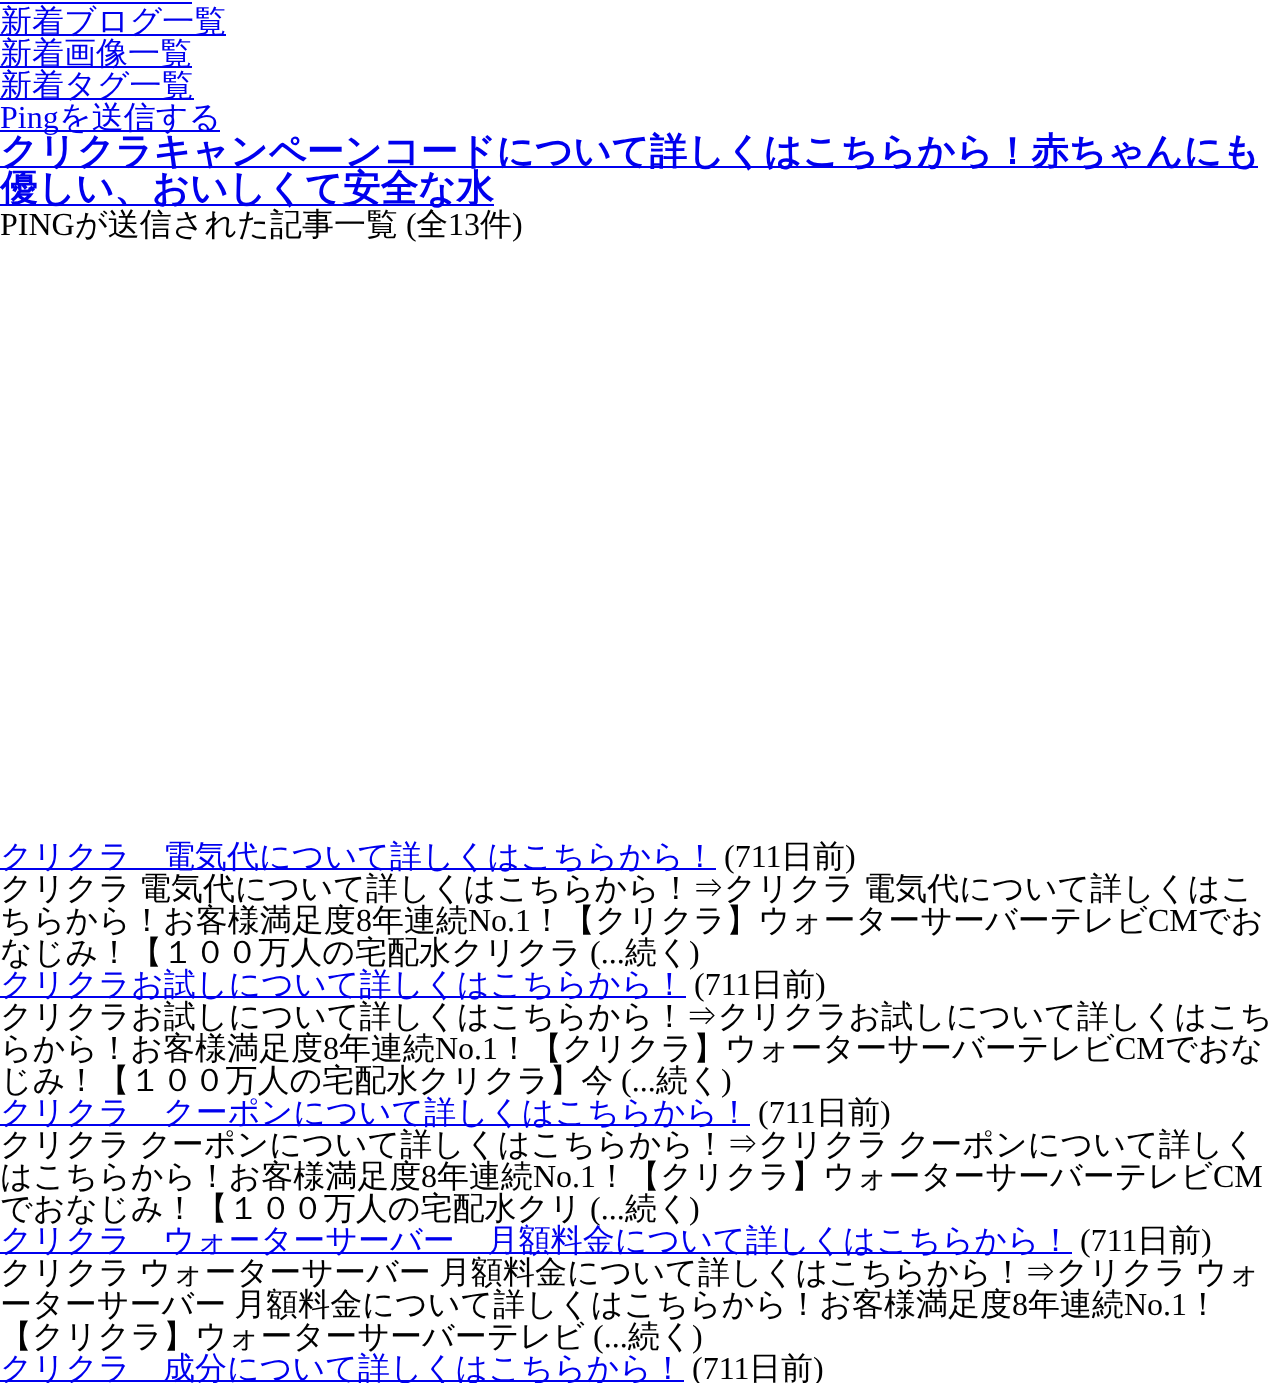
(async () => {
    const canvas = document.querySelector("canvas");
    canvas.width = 1280;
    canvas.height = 1383;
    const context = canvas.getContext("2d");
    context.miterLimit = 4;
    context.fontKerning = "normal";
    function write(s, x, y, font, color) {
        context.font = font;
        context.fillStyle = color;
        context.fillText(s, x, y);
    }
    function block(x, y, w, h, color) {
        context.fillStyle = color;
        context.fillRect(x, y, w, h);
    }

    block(0, 0, 1280, 1383, "rgb(255, 255, 255)");
    block(0, 2, 192, 2, "rgb(0, 0, 238)");
    block(0, 34, 226, 2, "rgb(0, 0, 238)");
    write("新着ブログ一覧", 0, 32, "500 32px WenQuanYi Zen Hei", "rgb(0, 0, 238)");
    block(0, 66, 192, 2, "rgb(0, 0, 238)");
    write("新着画像一覧", 0, 64, "500 32px WenQuanYi Zen Hei", "rgb(0, 0, 238)");
    block(0, 98, 194, 2, "rgb(0, 0, 238)");
    write("新着タグ一覧", 0, 96, "500 32px WenQuanYi Zen Hei", "rgb(0, 0, 238)");
    block(0, 130, 220, 2, "rgb(0, 0, 238)");
    write("Ping", 0, 128, "32px Liberation Serif", "rgb(0, 0, 238)");
    write("を送信する", 59, 128, "500 32px WenQuanYi Zen Hei", "rgb(0, 0, 238)");
    block(0, 166, 1258, 2, "rgb(0, 0, 238)");
    write("クリクラキャンペーンコードについて詳しくはこちらから！赤ちゃんにも", 0, 164, "bold 37.45px WenQuanYi Zen Hei", "rgb(0, 0, 238)");
    block(0, 204, 494, 2, "rgb(0, 0, 238)");
    write("優しい、おいしくて安全な水", 0, 201, "bold 37.45px WenQuanYi Zen Hei", "rgb(0, 0, 238)");
    write("PING", 0, 235, "32px Liberation Serif", "rgb(0, 0, 0)");
    write("が送信された記事一覧", 75, 235, "500 32px WenQuanYi Zen Hei", "rgb(0, 0, 0)");
    write("(", 406, 235, "32px Liberation Serif", "rgb(0, 0, 0)");
    write("全", 416, 235, "500 32px WenQuanYi Zen Hei", "rgb(0, 0, 0)");
    write("13", 448, 235, "32px Liberation Serif", "rgb(0, 0, 0)");
    write("件", 480, 235, "500 32px WenQuanYi Zen Hei", "rgb(0, 0, 0)");
    write(")", 512, 235, "32px Liberation Serif", "rgb(0, 0, 0)");
    block(0, 868, 716, 2, "rgb(0, 0, 238)");
    write("クリクラ　電気代について詳しくはこちらから！", 0, 867, "500 32px WenQuanYi Zen Hei", "rgb(0, 0, 238)");
    write("(711", 724, 867, "32px Liberation Serif", "rgb(0, 0, 0)");
    write("日前", 781, 867, "500 32px WenQuanYi Zen Hei", "rgb(0, 0, 0)");
    write(")", 845, 867, "32px Liberation Serif", "rgb(0, 0, 0)");
    context.wordSpacing = "-1.5px";
    write("クリクラ 電気代について詳しくはこちらから！⇒クリクラ 電気代について詳しくはこ", 0, 899, "500 32px WenQuanYi Zen Hei", "rgb(0, 0, 0)");
    context.wordSpacing = "0px";
    write("ちらから！お客様満足度", 0, 931, "500 32px WenQuanYi Zen Hei", "rgb(0, 0, 0)");
    write("8", 356, 931, "32px Liberation Serif", "rgb(0, 0, 0)");
    write("年連続", 372, 931, "500 32px WenQuanYi Zen Hei", "rgb(0, 0, 0)");
    write("No.1", 468, 931, "32px Liberation Serif", "rgb(0, 0, 0)");
    write("！【クリクラ】ウォーターサーバーテレビ", 531, 931, "500 32px WenQuanYi Zen Hei", "rgb(0, 0, 0)");
    write("CM", 1148, 931, "32px Liberation Serif", "rgb(0, 0, 0)");
    write("でお", 1198, 931, "500 32px WenQuanYi Zen Hei", "rgb(0, 0, 0)");
    write("なじみ！【１００万人の宅配水クリクラ", 0, 963, "500 32px WenQuanYi Zen Hei", "rgb(0, 0, 0)");
    write("(...", 590, 963, "32px Liberation Serif", "rgb(0, 0, 0)");
    write("続く", 625, 963, "500 32px WenQuanYi Zen Hei", "rgb(0, 0, 0)");
    write(")", 689, 963, "32px Liberation Serif", "rgb(0, 0, 0)");
    block(0, 996, 686, 2, "rgb(0, 0, 238)");
    write("クリクラお試しについて詳しくはこちらから！", 0, 995, "500 32px WenQuanYi Zen Hei", "rgb(0, 0, 238)");
    write("(711", 694, 995, "32px Liberation Serif", "rgb(0, 0, 0)");
    write("日前", 751, 995, "500 32px WenQuanYi Zen Hei", "rgb(0, 0, 0)");
    write(")", 815, 995, "32px Liberation Serif", "rgb(0, 0, 0)");
    write("クリクラお試しについて詳しくはこちらから！⇒クリクラお試しについて詳しくはこち", 0, 1027, "500 32px WenQuanYi Zen Hei", "rgb(0, 0, 0)");
    write("らから！お客様満足度", 0, 1059, "500 32px WenQuanYi Zen Hei", "rgb(0, 0, 0)");
    write("8", 323, 1059, "32px Liberation Serif", "rgb(0, 0, 0)");
    write("年連続", 339, 1059, "500 32px WenQuanYi Zen Hei", "rgb(0, 0, 0)");
    write("No.1", 435, 1059, "32px Liberation Serif", "rgb(0, 0, 0)");
    write("！【クリクラ】ウォーターサーバーテレビ", 498, 1059, "500 32px WenQuanYi Zen Hei", "rgb(0, 0, 0)");
    write("CM", 1115, 1059, "32px Liberation Serif", "rgb(0, 0, 0)");
    write("でおな", 1165, 1059, "500 32px WenQuanYi Zen Hei", "rgb(0, 0, 0)");
    write("じみ！【１００万人の宅配水クリクラ】今", 0, 1091, "500 32px WenQuanYi Zen Hei", "rgb(0, 0, 0)");
    write("(...", 621, 1091, "32px Liberation Serif", "rgb(0, 0, 0)");
    write("続く", 656, 1091, "500 32px WenQuanYi Zen Hei", "rgb(0, 0, 0)");
    write(")", 721, 1091, "32px Liberation Serif", "rgb(0, 0, 0)");
    block(0, 1124, 750, 2, "rgb(0, 0, 238)");
    write("クリクラ　クーポンについて詳しくはこちらから！", 0, 1123, "500 32px WenQuanYi Zen Hei", "rgb(0, 0, 238)");
    write("(711", 758, 1123, "32px Liberation Serif", "rgb(0, 0, 0)");
    write("日前", 816, 1123, "500 32px WenQuanYi Zen Hei", "rgb(0, 0, 0)");
    write(")", 880, 1123, "32px Liberation Serif", "rgb(0, 0, 0)");
    context.wordSpacing = "-1.5px";
    write("クリクラ クーポンについて詳しくはこちらから！⇒クリクラ クーポンについて詳しく", 0, 1155, "500 32px WenQuanYi Zen Hei", "rgb(0, 0, 0)");
    context.wordSpacing = "0px";
    write("はこちらから！お客様満足度", 0, 1187, "500 32px WenQuanYi Zen Hei", "rgb(0, 0, 0)");
    write("8", 421, 1187, "32px Liberation Serif", "rgb(0, 0, 0)");
    write("年連続", 437, 1187, "500 32px WenQuanYi Zen Hei", "rgb(0, 0, 0)");
    write("No.1", 533, 1187, "32px Liberation Serif", "rgb(0, 0, 0)");
    write("！【クリクラ】ウォーターサーバーテレビ", 596, 1187, "500 32px WenQuanYi Zen Hei", "rgb(0, 0, 0)");
    write("CM", 1213, 1187, "32px Liberation Serif", "rgb(0, 0, 0)");
    write("でおなじみ！【１００万人の宅配水クリ", 0, 1219, "500 32px WenQuanYi Zen Hei", "rgb(0, 0, 0)");
    write("(...", 590, 1219, "32px Liberation Serif", "rgb(0, 0, 0)");
    write("続く", 625, 1219, "500 32px WenQuanYi Zen Hei", "rgb(0, 0, 0)");
    write(")", 689, 1219, "32px Liberation Serif", "rgb(0, 0, 0)");
    block(0, 1252, 1072, 2, "rgb(0, 0, 238)");
    write("クリクラ　ウォーターサーバー　月額料金について詳しくはこちらから！", 0, 1251, "500 32px WenQuanYi Zen Hei", "rgb(0, 0, 238)");
    write("(711", 1080, 1251, "32px Liberation Serif", "rgb(0, 0, 0)");
    write("日前", 1137, 1251, "500 32px WenQuanYi Zen Hei", "rgb(0, 0, 0)");
    write(")", 1201, 1251, "32px Liberation Serif", "rgb(0, 0, 0)");
    context.wordSpacing = "-1.5px";
    write("クリクラ ウォーターサーバー 月額料金について詳しくはこちらから！⇒クリクラ ウォ", 0, 1283, "500 32px WenQuanYi Zen Hei", "rgb(0, 0, 0)");
    write("ーターサーバー 月額料金について詳しくはこちらから！お客様満足度", 0, 1315, "500 32px WenQuanYi Zen Hei", "rgb(0, 0, 0)");
    context.wordSpacing = "0px";
    write("8", 1012, 1315, "32px Liberation Serif", "rgb(0, 0, 0)");
    write("年連続", 1028, 1315, "500 32px WenQuanYi Zen Hei", "rgb(0, 0, 0)");
    write("No.1", 1124, 1315, "32px Liberation Serif", "rgb(0, 0, 0)");
    write("！", 1187, 1315, "500 32px WenQuanYi Zen Hei", "rgb(0, 0, 0)");
    write("【クリクラ】ウォーターサーバーテレビ", 0, 1347, "500 32px WenQuanYi Zen Hei", "rgb(0, 0, 0)");
    write("(...", 593, 1347, "32px Liberation Serif", "rgb(0, 0, 0)");
    write("続く", 628, 1347, "500 32px WenQuanYi Zen Hei", "rgb(0, 0, 0)");
    write(")", 692, 1347, "32px Liberation Serif", "rgb(0, 0, 0)");
    block(0, 1380, 684, 2, "rgb(0, 0, 238)");
    write("クリクラ　成分について詳しくはこちらから！", 0, 1379, "500 32px WenQuanYi Zen Hei", "rgb(0, 0, 238)");
    write("(711", 692, 1379, "32px Liberation Serif", "rgb(0, 0, 0)");
    write("日前", 749, 1379, "500 32px WenQuanYi Zen Hei", "rgb(0, 0, 0)");
    write(")", 813, 1379, "32px Liberation Serif", "rgb(0, 0, 0)");
})();
